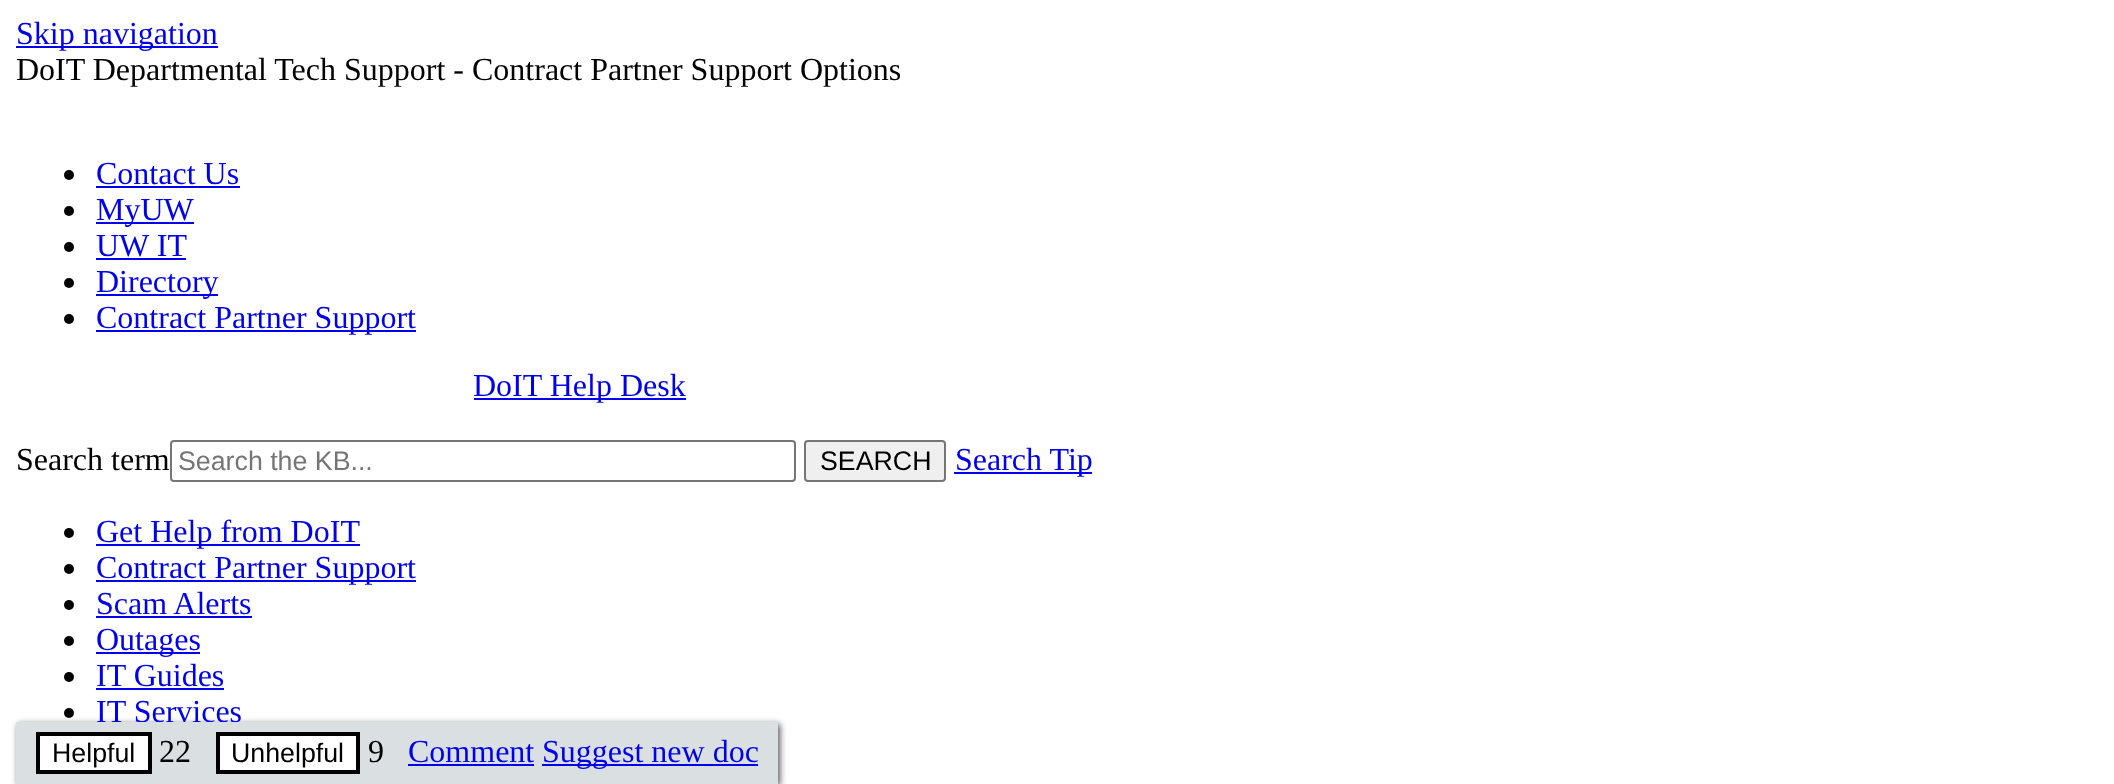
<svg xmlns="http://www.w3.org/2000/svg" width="2114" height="784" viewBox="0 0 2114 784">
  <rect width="100%" height="100%" fill="#fff"/>
  <path d="M16 46h202v2H16z" fill="#00e"/>
  <circle cx="69" cy="175" r="5" fill="#000"/>
  <path d="M96 186h144v2H96z" fill="#00e"/>
  <circle cx="69" cy="211" r="5" fill="#000"/>
  <path d="M96 222h98v2H96z" fill="#00e"/>
  <circle cx="69" cy="247" r="5" fill="#000"/>
  <path d="M96 258h90v2H96z" fill="#00e"/>
  <circle cx="69" cy="283" r="5" fill="#000"/>
  <path d="M96 294h122v2H96z" fill="#00e"/>
  <circle cx="69" cy="319" r="5" fill="#000"/>
  <path d="M96 330h320v2H96z" fill="#00e"/>
  <path d="M474 398h212v2H474z" fill="#00e"/>
  <rect x="171" y="441" width="624" height="40" rx="3" fill="none" stroke="#767676" stroke-width="2"/>
  <rect x="805" y="441" width="140" height="40" rx="3" fill="#efefef" stroke="#767676" stroke-width="2"/>
  <path d="M954 472h138v2H954z" fill="#00e"/>
  <circle cx="69" cy="533" r="5" fill="#000"/>
  <path d="M96 544h264v2H96z" fill="#00e"/>
  <circle cx="69" cy="569" r="5" fill="#000"/>
  <path d="M96 580h320v2H96z" fill="#00e"/>
  <circle cx="69" cy="605" r="5" fill="#000"/>
  <path d="M96 616h156v2H96z" fill="#00e"/>
  <circle cx="69" cy="641" r="5" fill="#000"/>
  <path d="M96 652h104v2H96z" fill="#00e"/>
  <circle cx="69" cy="677" r="5" fill="#000"/>
  <path d="M96 688h128v2H96z" fill="#00e"/>
  <circle cx="69" cy="713" r="5" fill="#000"/>
  <path d="M18 724h762v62H18z" fill="#555" filter="blur(3px)"/>
  <text x="16" y="44" font-family="Liberation Serif" font-size="32" fill="#00e">Skip navigation</text>
  <text x="16" y="80" font-family="Liberation Serif" font-size="32" fill="#000">DoIT Departmental Tech Support - Contract Partner Support Options</text>
  <g font-family="Liberation Serif" font-size="32" fill="#00e">
    <text x="96" y="184">Contact Us</text>
    <text x="96" y="220">MyUW</text>
    <text x="96" y="256">UW IT</text>
    <text x="96" y="292">Directory</text>
    <text x="96" y="328">Contract Partner Support</text>
    <text x="473" y="396">DoIT Help Desk</text>
  </g>
  <text x="16" y="470" font-family="Liberation Serif" font-size="32" fill="#000">Search term</text>
  <text x="178" y="470" font-family="Liberation Sans" font-size="26.75" fill="#757575">Search the KB...</text>
  <text x="820" y="470" font-family="Liberation Sans" font-size="26.75" fill="#000">SEARCH</text>
  <g font-family="Liberation Serif" font-size="32" fill="#00e">
    <text x="955" y="470">Search Tip</text>
    <text x="96" y="542">Get Help from DoIT</text>
    <text x="96" y="578">Contract Partner Support</text>
    <text x="96" y="614">Scam Alerts</text>
    <text x="96" y="650">Outages</text>
    <text x="96" y="686">IT Guides</text>
    <text x="96" y="722">IT Services</text>
  </g>
  <path d="M16 722h762v62H16z" fill="#dadfe1"/>
  <path d="M38 734h112v38H38z" fill="#fff" stroke="#000" stroke-width="4"/>
  <text x="52" y="762" font-family="Liberation Sans" font-size="26.75" fill="#000">Helpful</text>
  <text x="159" y="762" font-family="Liberation Serif" font-size="32" fill="#000">22</text>
  <path d="M218 734h140v38H218z" fill="#fff" stroke="#000" stroke-width="4"/>
  <text x="231" y="762" font-family="Liberation Sans" font-size="26.75" fill="#000">Unhelpful</text>
  <text x="368" y="762" font-family="Liberation Serif" font-size="32" fill="#000">9</text>
  <text x="408" y="762" font-family="Liberation Serif" font-size="32" fill="#00e">Comment</text>
  <path d="M408 764h126v2H408z" fill="#00e"/>
  <path d="M542 764h216v2H542z" fill="#00e"/>
  <text x="542" y="762" font-family="Liberation Serif" font-size="32" fill="#00e">Suggest new doc</text>
</svg>
